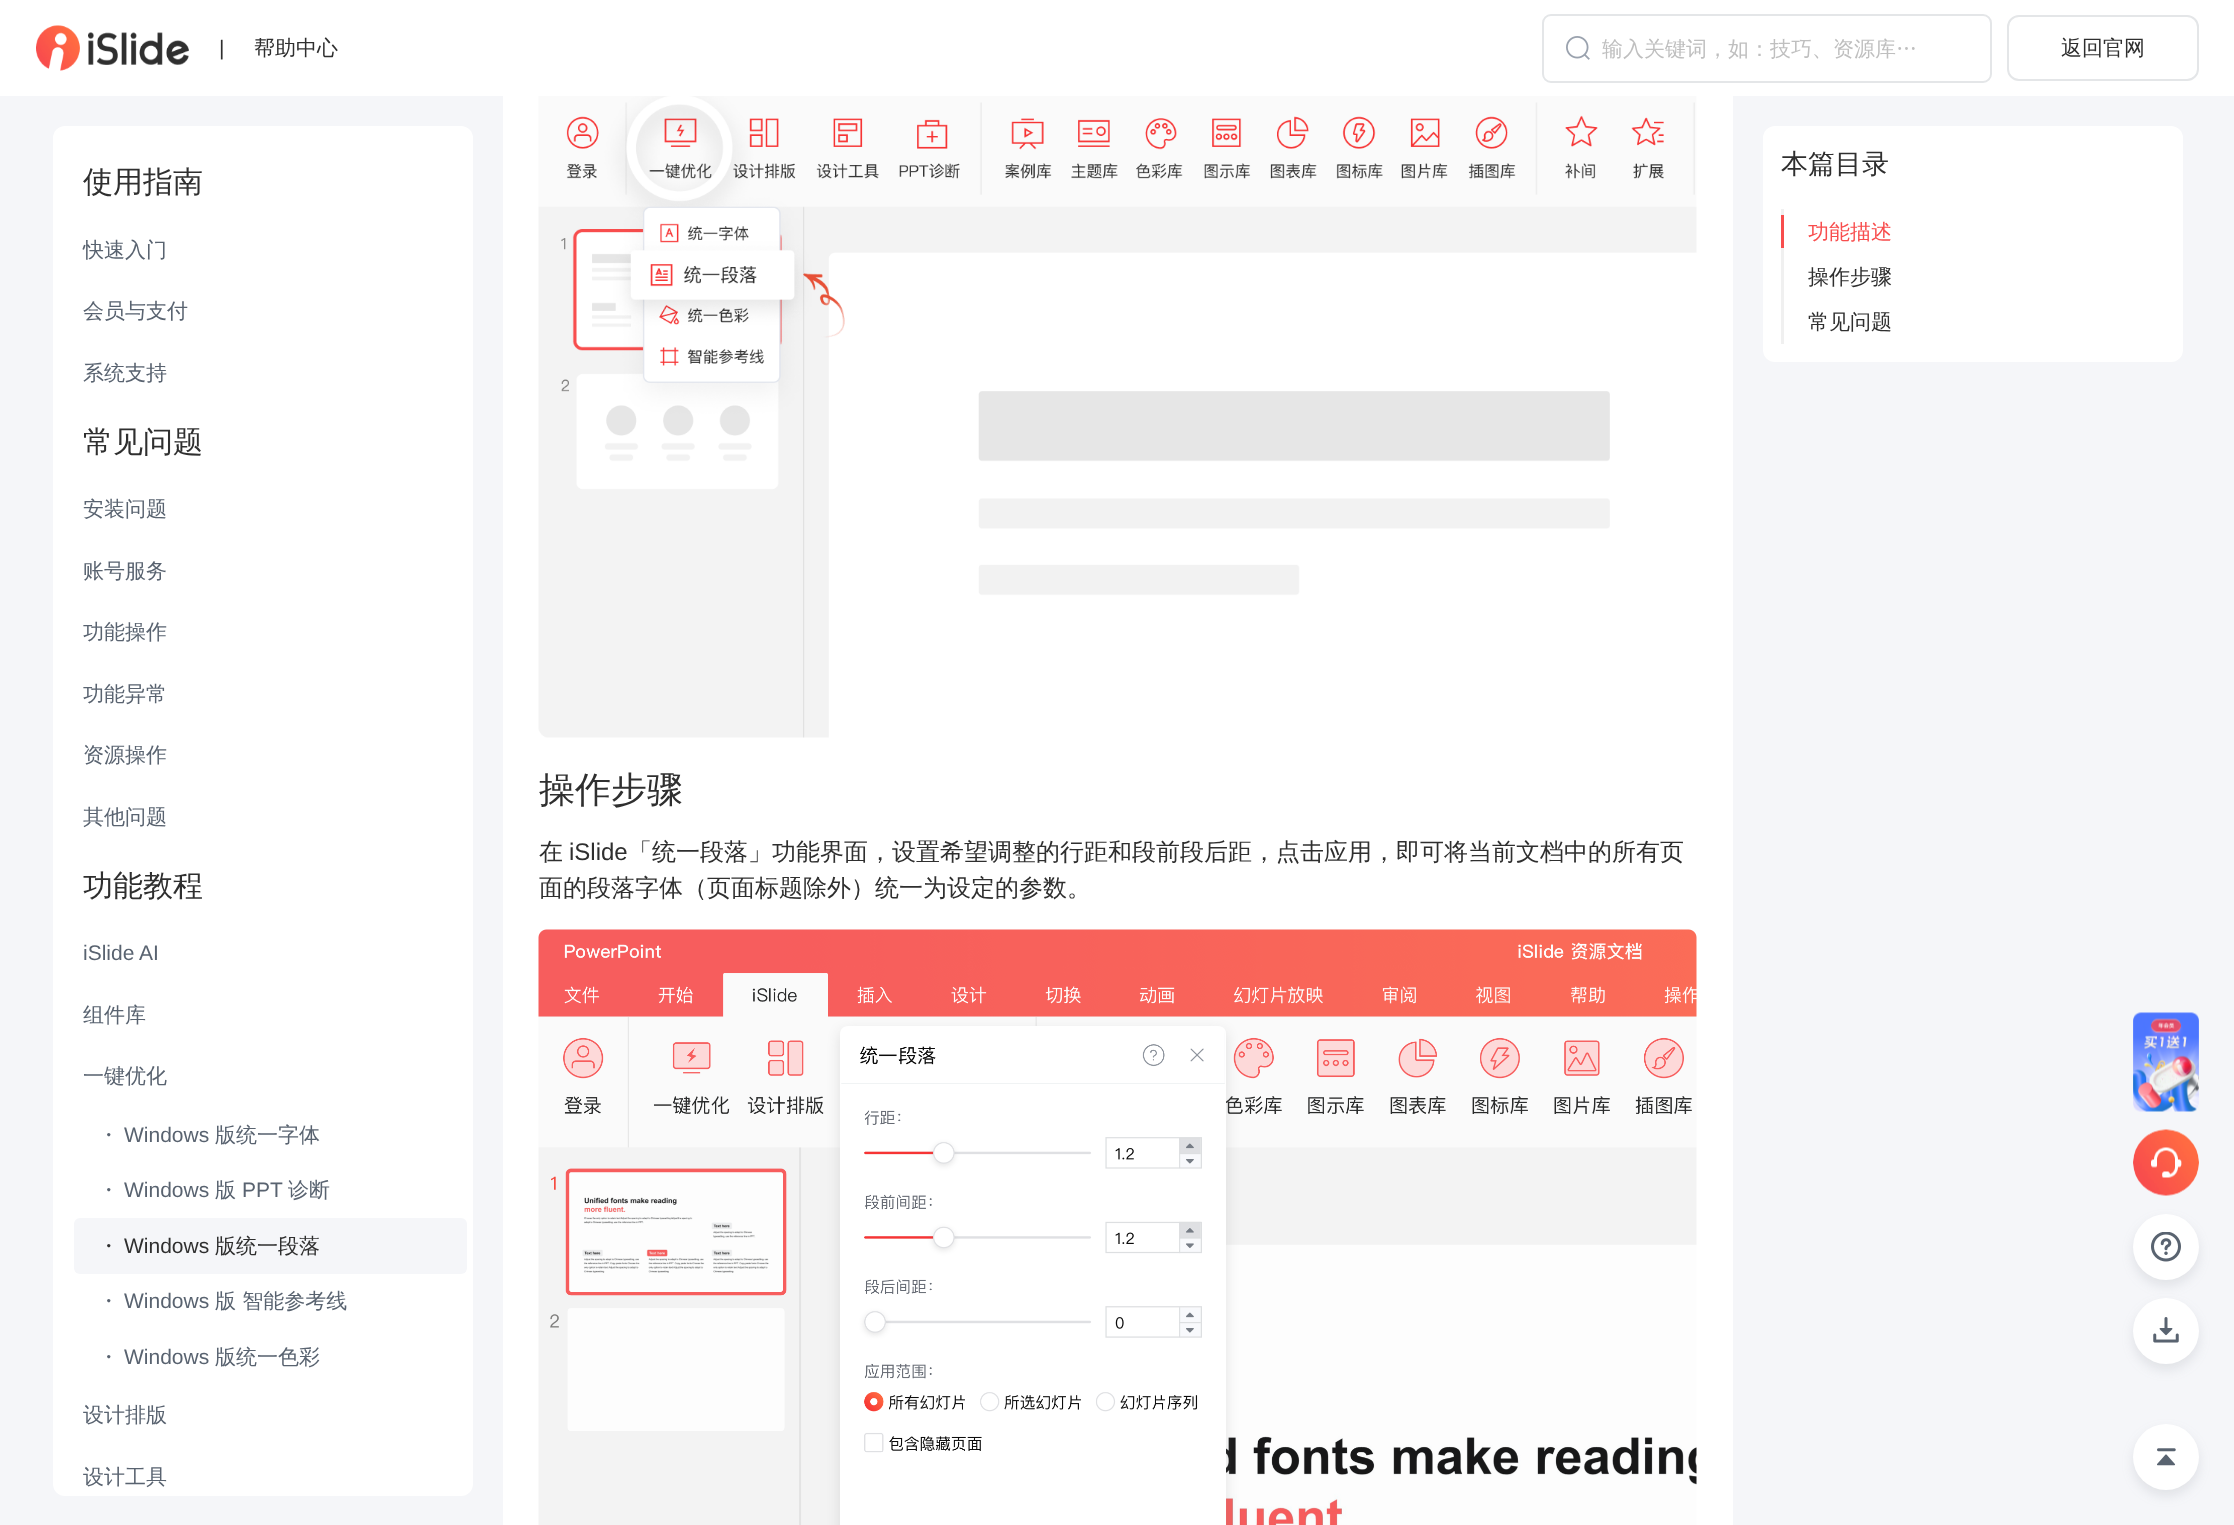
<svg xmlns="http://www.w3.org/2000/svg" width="2234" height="1525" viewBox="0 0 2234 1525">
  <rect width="100%" height="100%" fill="#f5f6f9"/>
  <path d="M0 0h2234v96H0z" fill="#fff"/>
  <image x="36" y="25" width="153" height="46" href="img/1.png"/>
  <rect x="1543" y="15" width="448" height="67" rx="8" fill="none" stroke="#e4e6e8" stroke-width="2"/>
  <image x="1566" y="36" width="24" height="24" href="img/2.png"/>
  <rect x="2008" y="16" width="190" height="64" rx="11" fill="none" stroke="#e4e6e8" stroke-width="2"/>
  <rect x="53" y="126" width="420" height="1370" rx="12" fill="#fff"/>
  <rect x="74" y="1218" width="393" height="56" rx="6" fill="#f5f6f9"/>
  <path d="M503 96h1230v1429H503z" fill="#fff"/>
  <image x="538" y="96" width="1159" height="642" href="img/3.png"/>
  <image x="538" y="929" width="1159" height="596" href="img/4.png"/>
  <rect x="1763" y="126" width="420" height="236" rx="12" fill="#fff"/>
  <path d="M1781 209h3v135H1781z" fill="#f0f0f0"/>
  <path d="M1781 215h3v33H1781z" fill="#f84d4d"/>
  <image x="2133" y="1012" width="66" height="100" href="img/5.png"/>
  <image x="2133" y="1129" width="66" height="67" href="img/6.png"/>
  <rect x="2133" y="1220" width="66" height="66" rx="33" fill="#797f8629" filter="blur(6px)"/>
  <circle cx="2166" cy="1247" r="33" fill="#fff"/>
  <image x="2151" y="1232" width="30" height="30" href="img/7.png"/>
  <rect x="2133" y="1304" width="66" height="66" rx="33" fill="#797f8629" filter="blur(6px)"/>
  <circle cx="2166" cy="1331" r="33" fill="#fff"/>
  <image x="2153" y="1317" width="26" height="26" href="img/8.png"/>
  <rect x="2133" y="1430" width="66" height="66" rx="33" fill="#797f8629" filter="blur(6px)"/>
  <circle cx="2166" cy="1457" r="33" fill="#fff"/>
  <image x="2157" y="1448" width="19" height="18" href="img/9.png"/>
  <text x="219" y="55" font-family="Liberation Sans" font-size="21" fill="#2f2f2f">|</text>
  <text x="254" y="55" font-family="WenQuanYi Zen Hei" font-size="21" font-weight="500" fill="#2f2f2f">帮助中心</text>
  <text x="1602" y="56" font-family="WenQuanYi Zen Hei" font-size="21" font-weight="500" fill="#bfbfbf">输入关键词，如：技巧、资源库…</text>
  <text x="2061" y="55" font-family="WenQuanYi Zen Hei" font-size="21" font-weight="500" fill="#2f2f2f">返回官网</text>
  <text x="83" y="192" font-family="WenQuanYi Zen Hei" font-size="30" font-weight="500" fill="#2f2f2f">使用指南</text>
  <g font-family="WenQuanYi Zen Hei" font-size="21" font-weight="500" fill="#596370">
    <text x="83" y="257">快速入门</text>
    <text x="83" y="318">会员与支付</text>
    <text x="83" y="380">系统支持</text>
  </g>
  <text x="83" y="452" font-family="WenQuanYi Zen Hei" font-size="30" font-weight="500" fill="#2f2f2f">常见问题</text>
  <g font-family="WenQuanYi Zen Hei" font-size="21" font-weight="500" fill="#596370">
    <text x="83" y="516">安装问题</text>
    <text x="83" y="578">账号服务</text>
    <text x="83" y="639">功能操作</text>
    <text x="83" y="701">功能异常</text>
    <text x="83" y="762">资源操作</text>
    <text x="83" y="824">其他问题</text>
  </g>
  <text x="83" y="896" font-family="WenQuanYi Zen Hei" font-size="30" font-weight="500" fill="#2f2f2f">功能教程</text>
  <text x="83" y="960" font-family="Liberation Sans" font-size="21" fill="#596370">iSlide AI</text>
  <g font-family="WenQuanYi Zen Hei" font-size="21" font-weight="500" fill="#596370">
    <text x="83" y="1022">组件库</text>
    <text x="83" y="1083">一键优化</text>
    <text x="98" y="1142">・</text>
  </g>
  <text x="124" y="1142" font-family="Liberation Sans" font-size="21" fill="#596370">Windows</text>
  <g font-family="WenQuanYi Zen Hei" font-size="21" font-weight="500" fill="#596370">
    <text x="215" y="1142">版统一字体</text>
    <text x="98" y="1197">・</text>
  </g>
  <text x="124" y="1197" font-family="Liberation Sans" font-size="21" fill="#596370">Windows</text>
  <text x="215" y="1197" font-family="WenQuanYi Zen Hei" font-size="21" font-weight="500" fill="#596370">版</text>
  <text x="242" y="1197" font-family="Liberation Sans" font-size="21" fill="#596370">PPT</text>
  <text x="288" y="1197" font-family="WenQuanYi Zen Hei" font-size="21" font-weight="500" fill="#596370">诊断</text>
  <text x="98" y="1253" font-family="WenQuanYi Zen Hei" font-size="21" font-weight="500" fill="#2f2f2f">・</text>
  <text x="124" y="1253" font-family="Liberation Sans" font-size="21" fill="#2f2f2f">Windows</text>
  <text x="215" y="1253" font-family="WenQuanYi Zen Hei" font-size="21" font-weight="500" fill="#2f2f2f">版统一段落</text>
  <text x="98" y="1308" font-family="WenQuanYi Zen Hei" font-size="21" font-weight="500" fill="#596370">・</text>
  <text x="124" y="1308" font-family="Liberation Sans" font-size="21" fill="#596370">Windows</text>
  <g font-family="WenQuanYi Zen Hei" font-size="21" font-weight="500" fill="#596370">
    <text x="215" y="1308">版 智能参考线</text>
    <text x="98" y="1364">・</text>
  </g>
  <text x="124" y="1364" font-family="Liberation Sans" font-size="21" fill="#596370">Windows</text>
  <g font-family="WenQuanYi Zen Hei" font-size="21" font-weight="500" fill="#596370">
    <text x="215" y="1364">版统一色彩</text>
    <text x="83" y="1422">设计排版</text>
    <text x="83" y="1484">设计工具</text>
  </g>
  <text x="539" y="802" font-family="WenQuanYi Zen Hei" font-size="36" font-weight="500" fill="#2f2f2f">操作步骤</text>
  <text x="539" y="860" font-family="WenQuanYi Zen Hei" font-size="24" font-weight="500" fill="#2f2f2f">在</text>
  <text x="569" y="860" font-family="Liberation Sans" font-size="24" fill="#2f2f2f">iSlide</text>
  <g font-family="WenQuanYi Zen Hei" font-size="24" font-weight="500" fill="#2f2f2f">
    <text x="628" y="860">「统一段落」功能界面，设置希望调整的行距和段前段后距，点击应用，即可将当前文档中的所有页</text>
    <text x="539" y="896">面的段落字体（页面标题除外）统一为设定的参数。</text>
  </g>
  <text x="1781" y="173" font-family="WenQuanYi Zen Hei" font-size="27" font-weight="500" fill="#2f2f2f">本篇目录</text>
  <text x="1808" y="239" font-family="WenQuanYi Zen Hei" font-size="21" font-weight="500" fill="#f84d4d">功能描述</text>
  <g font-family="WenQuanYi Zen Hei" font-size="21" font-weight="500" fill="#2f2f2f">
    <text x="1808" y="284">操作步骤</text>
    <text x="1808" y="329">常见问题</text>
  </g>
</svg>
